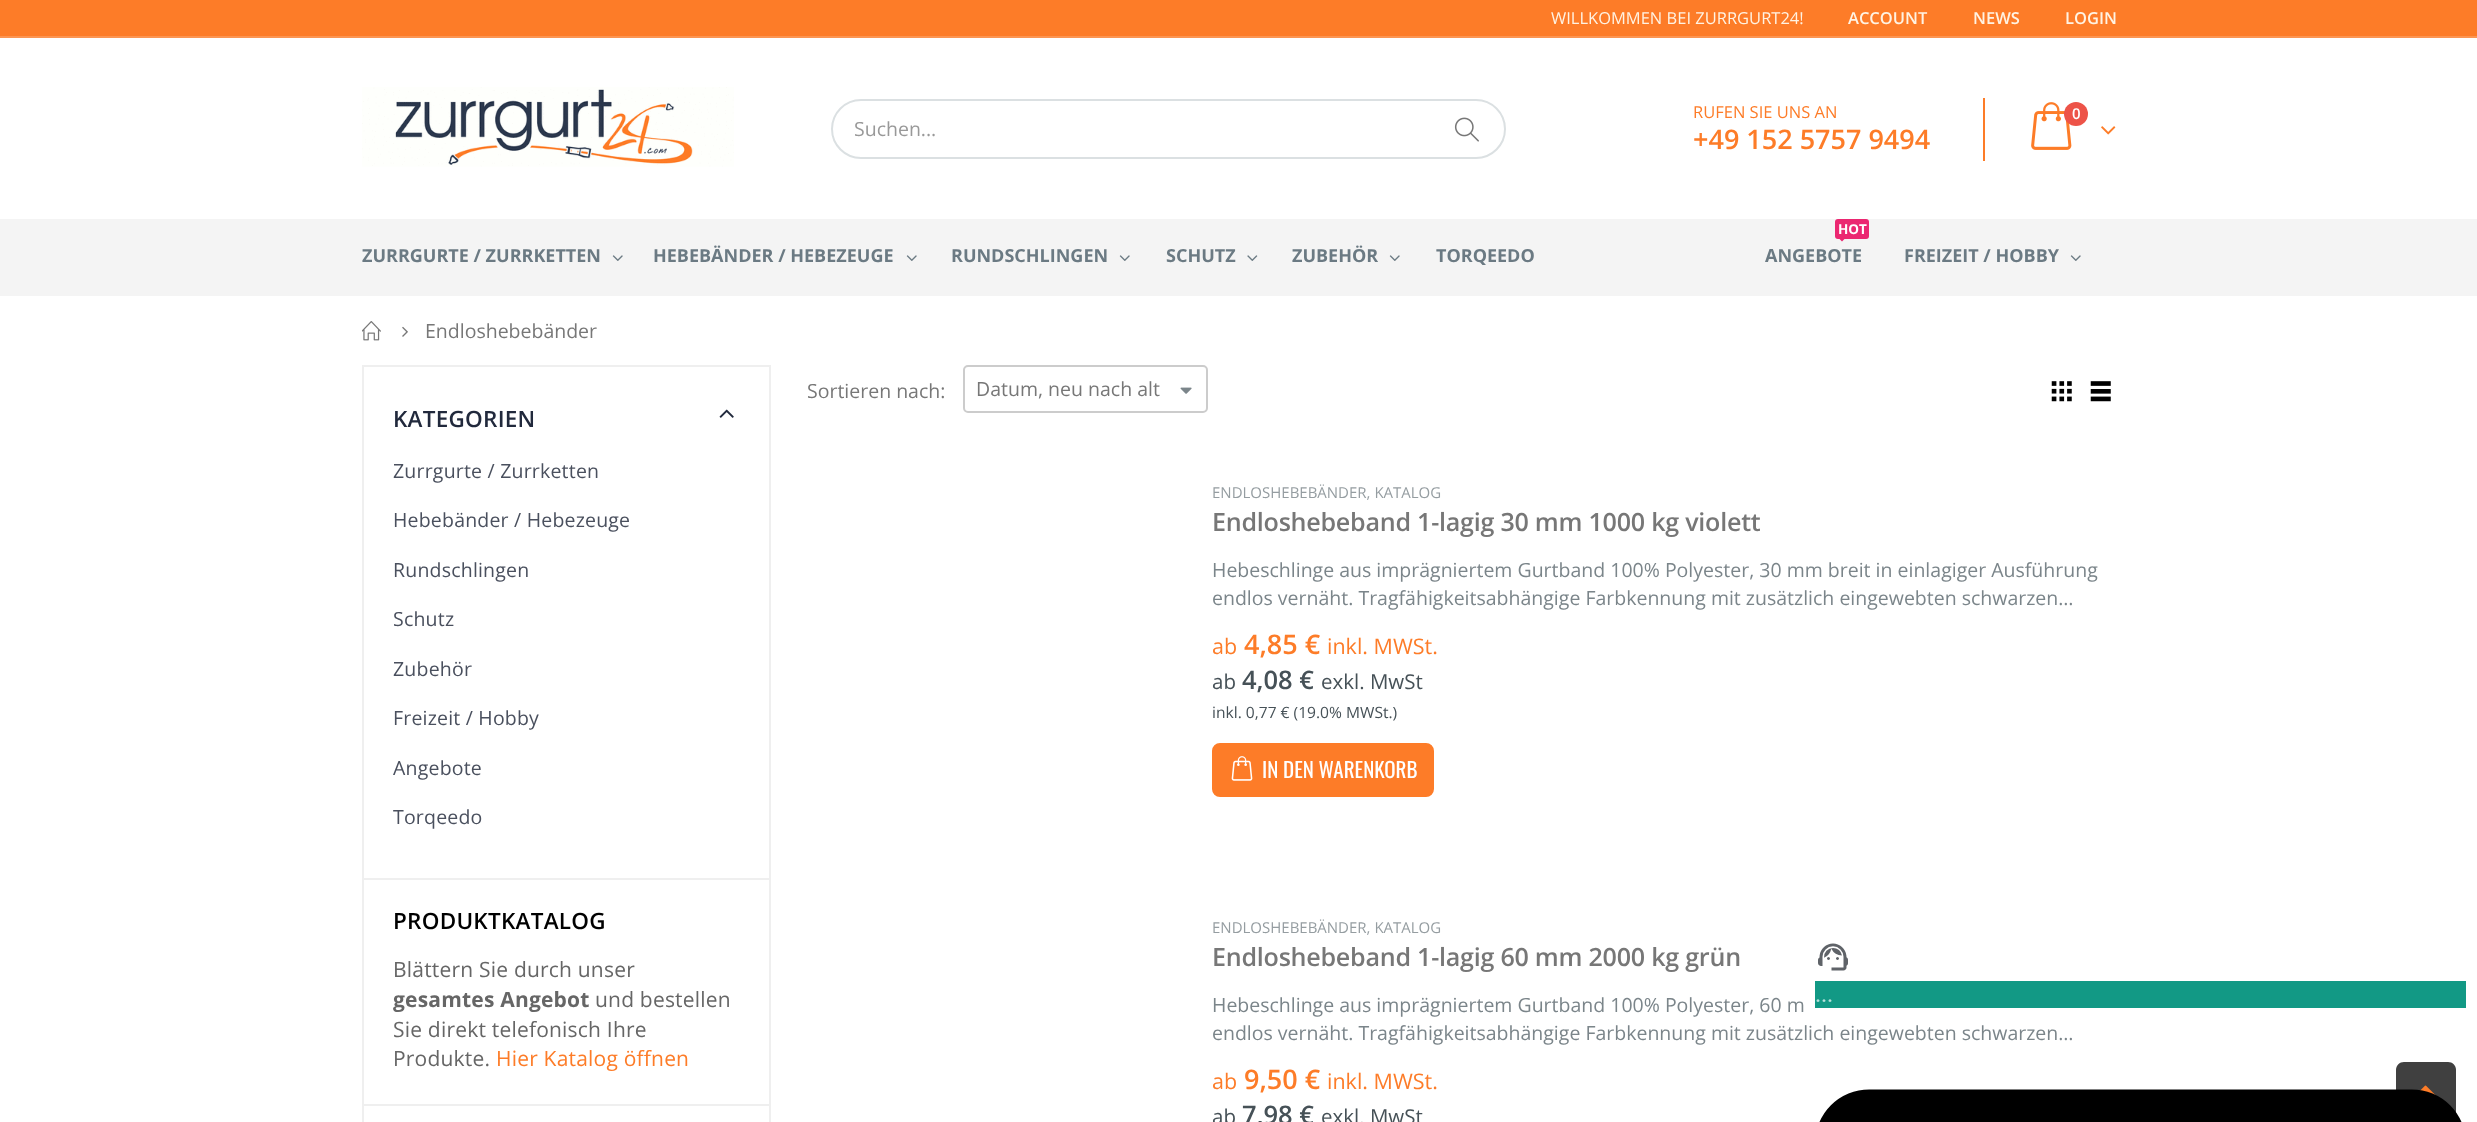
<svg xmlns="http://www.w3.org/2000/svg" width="2477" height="1122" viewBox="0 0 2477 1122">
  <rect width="100%" height="100%" fill="#fff"/>
  <path d="M0 0h2477v36H0z" fill="#fd7c28"/>
  <path d="M0 36h2477v2H0z" fill="#fc9552"/>
  <image x="362" y="87" width="372" height="80" href="img/1.png"/>
  <rect x="832" y="100" width="673" height="58" rx="29" fill="none" stroke="#dbe0e2" stroke-width="2"/>
  <image x="1454" y="117" width="25" height="25" href="img/2.png"/>
  <path d="M1983 98h2v63H1983z" fill="#fd7c28"/>
  <image x="2031" y="102" width="41" height="48" href="img/3.png"/>
  <circle cx="2076" cy="114" r="12" fill="#ed5348"/>
  <image x="2101" y="126" width="15" height="9" href="img/4.png"/>
  <path d="M0 219h2477v77H0z" fill="#f4f4f4"/>
  <image x="612" y="255" width="11" height="6" href="img/5.png"/>
  <image x="906" y="255" width="11" height="6" href="img/5.png"/>
  <image x="1119" y="255" width="11" height="6" href="img/5.png"/>
  <image x="1247" y="255" width="11" height="6" href="img/6.png"/>
  <image x="1389" y="255" width="11" height="6" href="img/5.png"/>
  <rect x="1835" y="219" width="34" height="20" rx="3" fill="#eb2771"/>
  <path d="M1839 238.5H1845L1842 241.5Z" fill="#eb2771"/>
  <image x="2070" y="255" width="11" height="6" href="img/5.png"/>
  <image x="362" y="321" width="19" height="20" href="img/7.png"/>
  <image x="402" y="326" width="6" height="11" href="img/8.png"/>
  <path d="M363 366h407v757H363z" fill="none" stroke="#efefef" stroke-width="2"/>
  <image x="719" y="409" width="15" height="9" href="img/9.png"/>
  <path d="M363 878h407v2H363z" fill="#efefef"/>
  <path d="M363 1104h407v2H363z" fill="#efefef"/>
  <rect x="964" y="366" width="243" height="46" rx="4" fill="none" stroke="#ccc" stroke-width="2"/>
  <image x="1180" y="387" width="12" height="7" href="img/10.png"/>
  <image x="2051" y="381" width="21" height="21" href="img/11.png"/>
  <image x="2090" y="381" width="21" height="21" href="img/12.png"/>
  <rect x="1213" y="744" width="220" height="52" rx="7" fill="#fd7c28" stroke="#fd7c28" stroke-width="2"/>
  <image x="1231" y="756" width="22" height="25" href="img/13.png"/>
  <path d="M2404 1062H2448C2452.5 1062 2456 1065.5 2456 1070V1122H2396V1070C2396 1065.5 2399.5 1062 2404 1062Z" fill="#404040"/>
  <image x="2419" y="1085" width="18" height="11" href="img/14.png"/>
  <text x="1551" y="24" font-family="Open Sans" font-size="16.5" fill="#fff3e3">WILLKOMMEN BEI ZURRGURT24!</text>
  <g font-family="Open Sans" font-size="16.5" font-weight="600" fill="#fff3e3">
    <text x="1848" y="24">ACCOUNT</text>
    <text x="1973" y="24">NEWS</text>
    <text x="2065" y="24">LOGIN</text>
  </g>
  <text x="854" y="136" font-family="Open Sans" font-size="19.5" fill="#999">Suchen...</text>
  <text x="1693" y="118" font-family="Open Sans" font-size="16.5" fill="#fd7c28">RUFEN SIE UNS AN</text>
  <text x="1693" y="149" font-family="Open Sans" font-size="27" font-weight="600" fill="#fd7c28">+49 152 5757 9494</text>
  <text x="2072" y="119" font-family="Open Sans" font-size="15" font-weight="600" fill="#fff">0</text>
  <g font-family="Open Sans" font-size="18" font-weight="bold" fill="#6b7a83">
    <text x="362" y="262">ZURRGURTE / ZURRKETTEN</text>
    <text x="653" y="262">HEBEBÄNDER / HEBEZEUGE</text>
    <text x="951" y="262">RUNDSCHLINGEN</text>
    <text x="1166" y="262">SCHUTZ</text>
    <text x="1292" y="262">ZUBEHÖR</text>
    <text x="1436" y="262">TORQEEDO</text>
  </g>
  <text x="1838" y="234" font-family="Open Sans" font-size="13.5" font-weight="bold" fill="#fff">HOT</text>
  <g font-family="Open Sans" font-size="18" font-weight="bold" fill="#6b7a83">
    <text x="1765" y="262">ANGEBOTE</text>
    <text x="1904" y="262">FREIZEIT / HOBBY</text>
  </g>
  <text x="425" y="338" font-family="Open Sans" font-size="19.5" fill="#777">Endloshebebänder</text>
  <text x="393" y="427" font-family="Open Sans" font-size="22.5" font-weight="600" letter-spacing="0.25" fill="#21293c">KATEGORIEN</text>
  <g font-family="Open Sans" font-size="19.5" letter-spacing="0.2" fill="#4a505e">
    <text x="393" y="478">Zurrgurte / Zurrketten</text>
    <text x="393" y="527">Hebebänder / Hebezeuge</text>
    <text x="393" y="577">Rundschlingen</text>
    <text x="393" y="626">Schutz</text>
    <text x="393" y="676">Zubehör</text>
    <text x="393" y="725">Freizeit / Hobby</text>
    <text x="393" y="775">Angebote</text>
    <text x="393" y="824">Torqeedo</text>
  </g>
  <text x="393" y="929" font-family="Open Sans" font-size="22.5" font-weight="600" letter-spacing="0.25" fill="#000">PRODUKTKATALOG</text>
  <text x="393" y="977" font-family="Open Sans" font-size="21" letter-spacing="0.2" fill="#666">Blättern Sie durch unser</text>
  <text x="393" y="1007" font-family="Open Sans" font-size="21" font-weight="bold" letter-spacing="0.2" fill="#666">gesamtes Angebot</text>
  <g font-family="Open Sans" font-size="21" letter-spacing="0.2" fill="#666">
    <text x="595" y="1007">und bestellen</text>
    <text x="393" y="1037">Sie direkt telefonisch Ihre</text>
    <text x="393" y="1066">Produkte.</text>
  </g>
  <text x="496" y="1066" font-family="Open Sans" font-size="21" letter-spacing="0.2" fill="#fd7c28">Hier Katalog öffnen</text>
  <g font-family="Open Sans" font-size="19.5" fill="#777">
    <text x="807" y="398">Sortieren nach:</text>
    <text x="976" y="396">Datum, neu nach alt</text>
  </g>
  <text x="1212" y="498" font-family="Open Sans" font-size="15" fill="#959da1">ENDLOSHEBEBÄNDER, KATALOG</text>
  <text x="1212" y="531" font-family="Open Sans" font-size="25.1" font-weight="600" letter-spacing="-0.25" fill="#777">Endloshebeband 1-lagig 30 mm 1000 kg violett</text>
  <g font-family="Open Sans" font-size="19.5" fill="#7b858a">
    <text x="1212" y="577">Hebeschlinge aus imprägniertem Gurtband 100% Polyester, 30 mm breit in einlagiger Ausführung</text>
    <text x="1212" y="605">endlos vernäht. Tragfähigkeitsabhängige Farbkennung mit zusätzlich eingewebten schwarzen…</text>
  </g>
  <text x="1212" y="654" font-family="Open Sans" font-size="21.5" fill="#fd7c28">ab</text>
  <text x="1244" y="654" font-family="Open Sans" font-size="27" font-weight="600" fill="#fd7c28">4,85 €</text>
  <text x="1327" y="654" font-family="Open Sans" font-size="21.5" fill="#fd7c28">inkl. MWSt.</text>
  <text x="1212" y="689" font-family="Open Sans" font-size="20.5" fill="#465157">ab</text>
  <text x="1242" y="689" font-family="Open Sans" font-size="25.5" font-weight="600" fill="#465157">4,08 €</text>
  <text x="1321" y="689" font-family="Open Sans" font-size="20.5" fill="#465157">exkl. MwSt</text>
  <text x="1212" y="718" font-family="Open Sans" font-size="15.6" fill="#465157">inkl. 0,77 € (19.0% MWSt.)</text>
  <text x="1262" y="778" font-family="Oswald" font-size="21" fill="#fff">IN DEN WARENKORB</text>
  <text x="1212" y="933" font-family="Open Sans" font-size="15" fill="#959da1">ENDLOSHEBEBÄNDER, KATALOG</text>
  <text x="1212" y="966" font-family="Open Sans" font-size="25.1" font-weight="600" letter-spacing="-0.25" fill="#777">Endloshebeband 1-lagig 60 mm 2000 kg grün</text>
  <g font-family="Open Sans" font-size="19.5" fill="#7b858a">
    <text x="1212" y="1012">Hebeschlinge aus imprägniertem Gurtband 100% Polyester, 60 m</text>
    <text x="1212" y="1040">endlos vernäht. Tragfähigkeitsabhängige Farbkennung mit zusätzlich eingewebten schwarzen…</text>
  </g>
  <text x="1212" y="1089" font-family="Open Sans" font-size="21.5" fill="#fd7c28">ab</text>
  <text x="1244" y="1089" font-family="Open Sans" font-size="27" font-weight="600" fill="#fd7c28">9,50 €</text>
  <text x="1327" y="1089" font-family="Open Sans" font-size="21.5" fill="#fd7c28">inkl. MWSt.</text>
  <text x="1212" y="1124" font-family="Open Sans" font-size="20.5" fill="#465157">ab</text>
  <text x="1242" y="1124" font-family="Open Sans" font-size="25.5" font-weight="600" fill="#465157">7,98 €</text>
  <text x="1321" y="1124" font-family="Open Sans" font-size="20.5" fill="#465157">exkl. MwSt</text>
  <image x="1815" y="943" width="651" height="179" href="img/15.png"/>
</svg>
